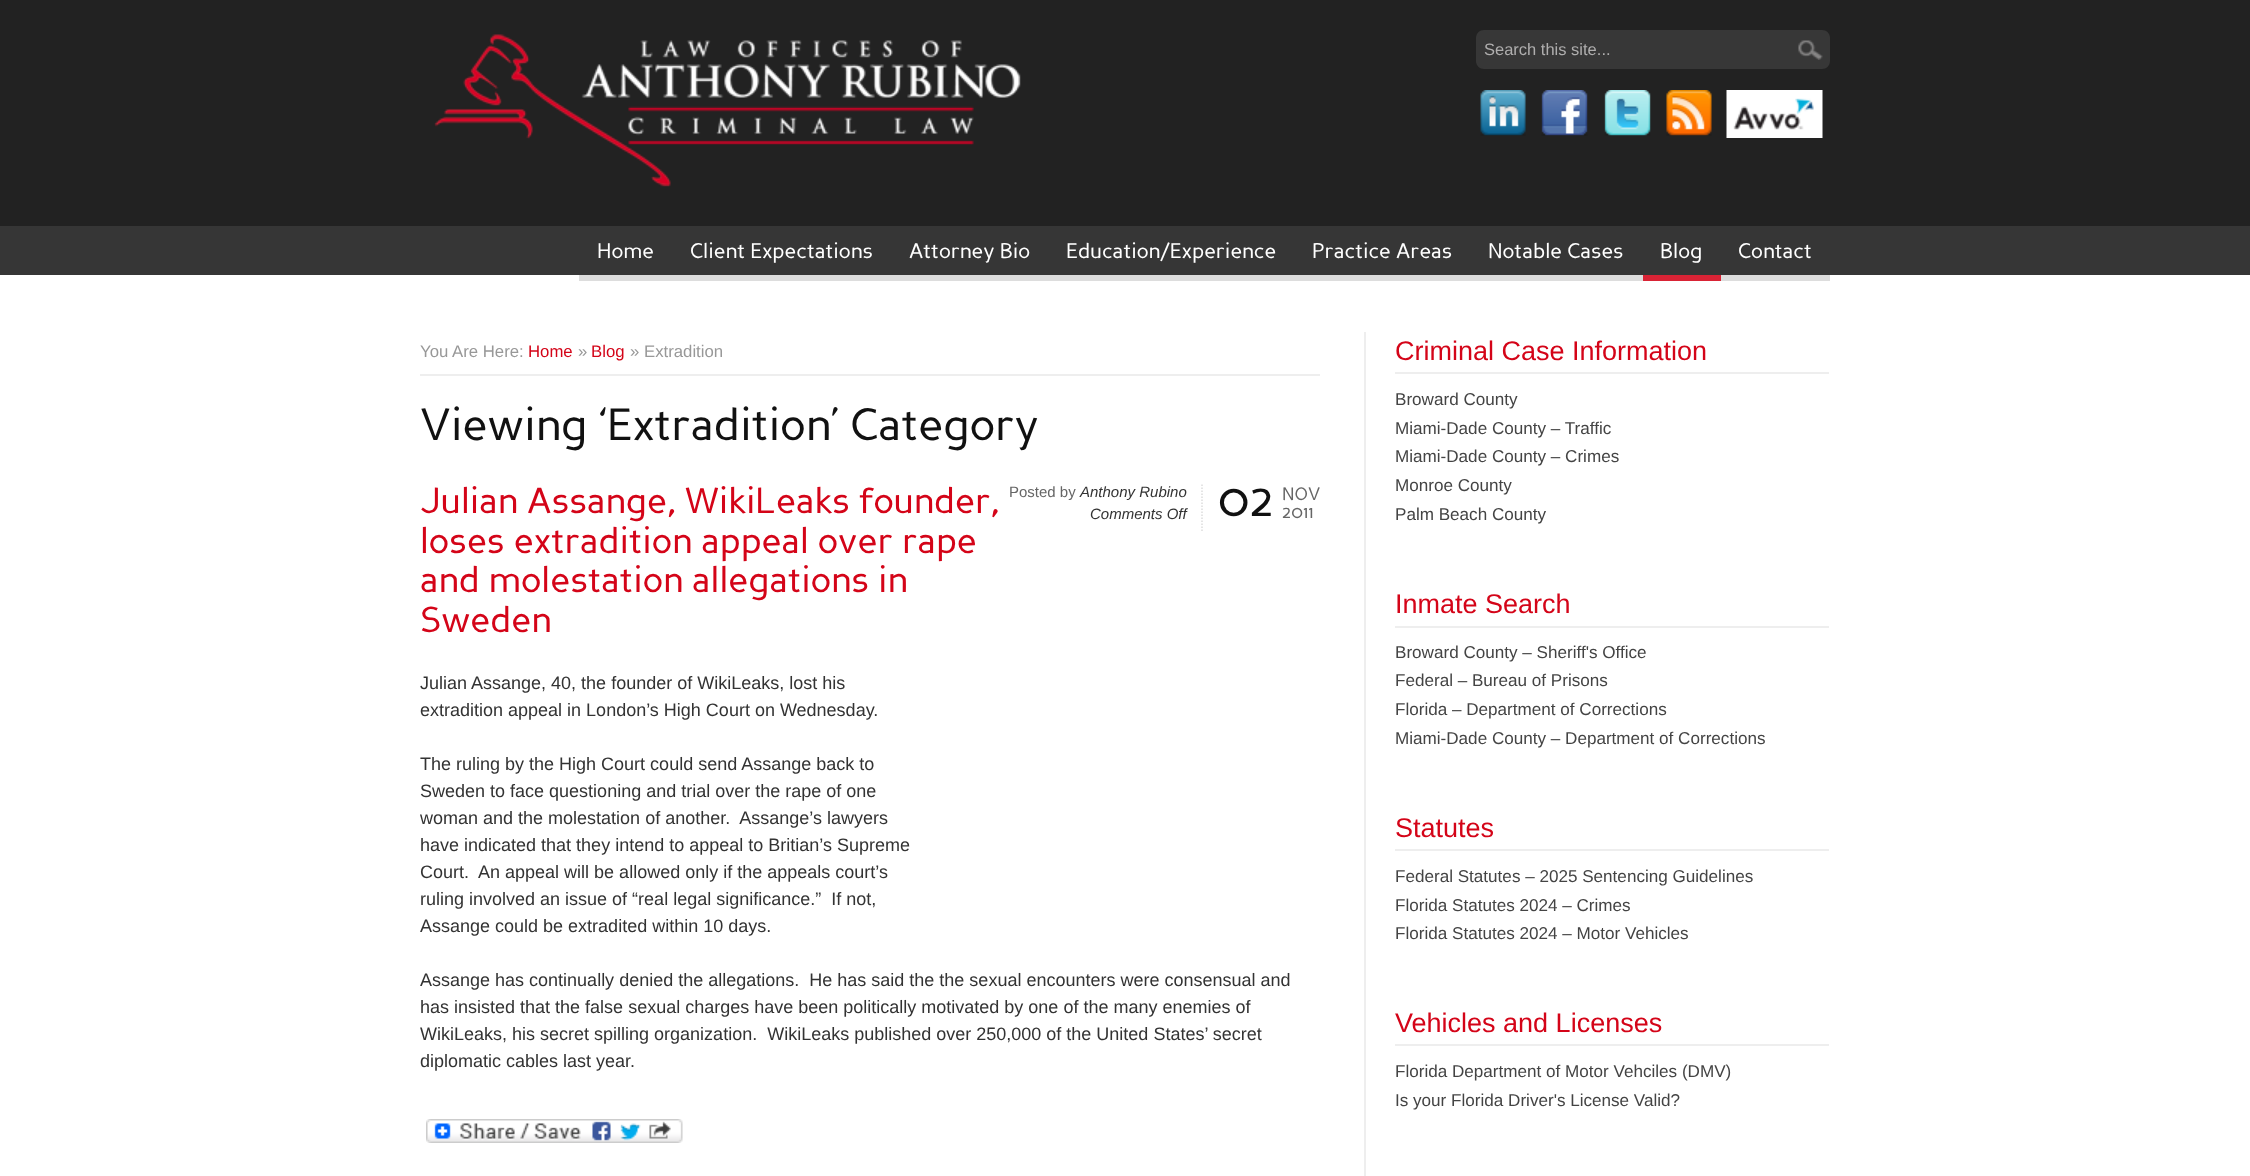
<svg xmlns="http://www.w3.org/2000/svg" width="2250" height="1176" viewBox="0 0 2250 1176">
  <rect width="100%" height="100%" fill="#fff"/>
  <path d="M0 0h2250v226H0z" fill="#222"/>
  <image x="434" y="34" width="587" height="153" href="img/1.png"/>
  <path d="M1484 30H1791V69H1484C1479.5 69 1476 65.5 1476 61V38C1476 33.5 1479.5 30 1484 30Z" fill="#373737"/>
  <path d="M1791 30H1822C1826.5 30 1830 33.5 1830 38V61C1830 65.5 1826.5 69 1822 69H1791Z" fill="#373737"/>
  <image x="1798" y="40" width="25" height="20" href="img/2.png"/>
  <image x="1480" y="90" width="46" height="46" href="img/3.png"/>
  <image x="1541" y="90" width="47" height="46" href="img/4.png"/>
  <image x="1604" y="90" width="47" height="46" href="img/5.png"/>
  <image x="1666" y="90" width="46" height="46" href="img/6.png"/>
  <image x="1726" y="90" width="97" height="48" href="img/7.png"/>
  <path d="M0 226h2250v49H0z" fill="#363636"/>
  <path d="M579 275h1064v6H579z" fill="#ddd"/>
  <path d="M1643 275h78v6H1643z" fill="#d92335"/>
  <path d="M1721 275h109v6H1721z" fill="#ddd"/>
  <path d="M1364 332h2v844H1364z" fill="#eee"/>
  <path d="M420 374h900v2H420z" fill="#eee"/>
  <path d="M1202 484.5V532.5" fill="none" stroke="#ddd" stroke-width="1.5" stroke-dasharray="1.5 1.5"/>
  <image x="426" y="1119" width="257" height="24" href="img/8.png"/>
  <path d="M1395 372h434v2H1395z" fill="#eee"/>
  <path d="M1395 626h434v2H1395z" fill="#eee"/>
  <path d="M1395 849h434v2H1395z" fill="#eee"/>
  <path d="M1395 1044h434v2H1395z" fill="#eee"/>
  <text x="1484" y="55" font-family="Liberation Sans" font-size="16.5" fill="#afaeae">Search this site...</text>
  <g font-family="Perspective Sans" font-size="21" fill="#fff">
    <text x="597" y="258">Home</text>
    <text x="690" y="258">Client Expectations</text>
    <text x="909" y="258">Attorney Bio</text>
    <text x="1066" y="258">Education/Experience</text>
    <text x="1312" y="258">Practice Areas</text>
    <text x="1488" y="258">Notable Cases</text>
    <text x="1660" y="258">Blog</text>
    <text x="1738" y="258">Contact</text>
  </g>
  <text x="420" y="357" font-family="Liberation Sans" font-size="16.75" fill="#989898">You Are Here:</text>
  <text x="528" y="357" font-family="Liberation Sans" font-size="16.75" fill="#d40418">Home</text>
  <text x="578" y="357" font-family="Liberation Sans" font-size="16.75" fill="#989898">»</text>
  <text x="591" y="357" font-family="Liberation Sans" font-size="16.75" fill="#d40418">Blog</text>
  <text x="630" y="357" font-family="Liberation Sans" font-size="16.75" fill="#989898">» Extradition</text>
  <text x="420" y="440" font-family="Perspective Sans" font-size="45" fill="#111">Viewing ‘Extradition’ Category</text>
  <g font-family="Perspective Sans" font-size="36" fill="#d40418">
    <text x="420" y="513">Julian Assange, WikiLeaks founder,</text>
    <text x="420" y="553">loses extradition appeal over rape</text>
    <text x="420" y="592">and molestation allegations in</text>
    <text x="420" y="632">Sweden</text>
  </g>
  <text x="1009" y="497" font-family="Liberation Sans" font-size="15" fill="#666">Posted by</text>
  <g font-family="Liberation Sans" font-size="15" font-style="italic" fill="#333">
    <text x="1080" y="497">Anthony Rubino</text>
    <text x="1090" y="519">Comments Off</text>
  </g>
  <text x="1218" y="516" font-family="Perspective Sans" font-size="48" fill="#111">02</text>
  <g font-family="Perspective Sans" font-size="18" fill="#666">
    <text x="1282" y="500">NOV</text>
    <text x="1282" y="518">2011</text>
  </g>
  <g font-family="Liberation Sans" font-size="18" fill="#333">
    <text x="420" y="689">Julian Assange, 40, the founder of WikiLeaks, lost his</text>
    <text x="420" y="716">extradition appeal in London’s High Court on Wednesday.</text>
    <text x="420" y="770">The ruling by the High Court could send Assange back to</text>
    <text x="420" y="797">Sweden to face questioning and trial over the rape of one</text>
    <text x="420" y="824" xml:space="preserve">woman and the molestation of another.  Assange’s lawyers</text>
    <text x="420" y="851">have indicated that they intend to appeal to Britian’s Supreme</text>
    <text x="420" y="878" xml:space="preserve">Court.  An appeal will be allowed only if the appeals court’s</text>
    <text x="420" y="905" xml:space="preserve">ruling involved an issue of “real legal significance.”  If not,</text>
    <text x="420" y="932">Assange could be extradited within 10 days.</text>
    <text x="420" y="986" xml:space="preserve">Assange has continually denied the allegations.  He has said the the sexual encounters were consensual and</text>
    <text x="420" y="1013">has insisted that the false sexual charges have been politically motivated by one of the many enemies of</text>
    <text x="420" y="1040" xml:space="preserve">WikiLeaks, his secret spilling organization.  WikiLeaks published over 250,000 of the United States’ secret</text>
    <text x="420" y="1067">diplomatic cables last year.</text>
  </g>
  <text x="1395" y="360" font-family="Liberation Sans" font-size="27" fill="#d40418">Criminal Case Information</text>
  <g font-family="Liberation Sans" font-size="17.1" fill="#444">
    <text x="1395" y="405">Broward County</text>
    <text x="1395" y="434">Miami-Dade County – Traffic</text>
    <text x="1395" y="462">Miami-Dade County – Crimes</text>
    <text x="1395" y="491">Monroe County</text>
    <text x="1395" y="520">Palm Beach County</text>
  </g>
  <text x="1395" y="613" font-family="Liberation Sans" font-size="27" fill="#d40418">Inmate Search</text>
  <g font-family="Liberation Sans" font-size="17.1" fill="#444">
    <text x="1395" y="658">Broward County – Sheriff's Office</text>
    <text x="1395" y="686">Federal – Bureau of Prisons</text>
    <text x="1395" y="715">Florida – Department of Corrections</text>
    <text x="1395" y="744">Miami-Dade County – Department of Corrections</text>
  </g>
  <text x="1395" y="837" font-family="Liberation Sans" font-size="27" fill="#d40418">Statutes</text>
  <g font-family="Liberation Sans" font-size="17.1" fill="#444">
    <text x="1395" y="882">Federal Statutes – 2025 Sentencing Guidelines</text>
    <text x="1395" y="911">Florida Statutes 2024 – Crimes</text>
    <text x="1395" y="939">Florida Statutes 2024 – Motor Vehicles</text>
  </g>
  <text x="1395" y="1032" font-family="Liberation Sans" font-size="27" fill="#d40418">Vehicles and Licenses</text>
  <g font-family="Liberation Sans" font-size="17.1" fill="#444">
    <text x="1395" y="1077">Florida Department of Motor Vehciles (DMV)</text>
    <text x="1395" y="1106">Is your Florida Driver's License Valid?</text>
  </g>
</svg>
